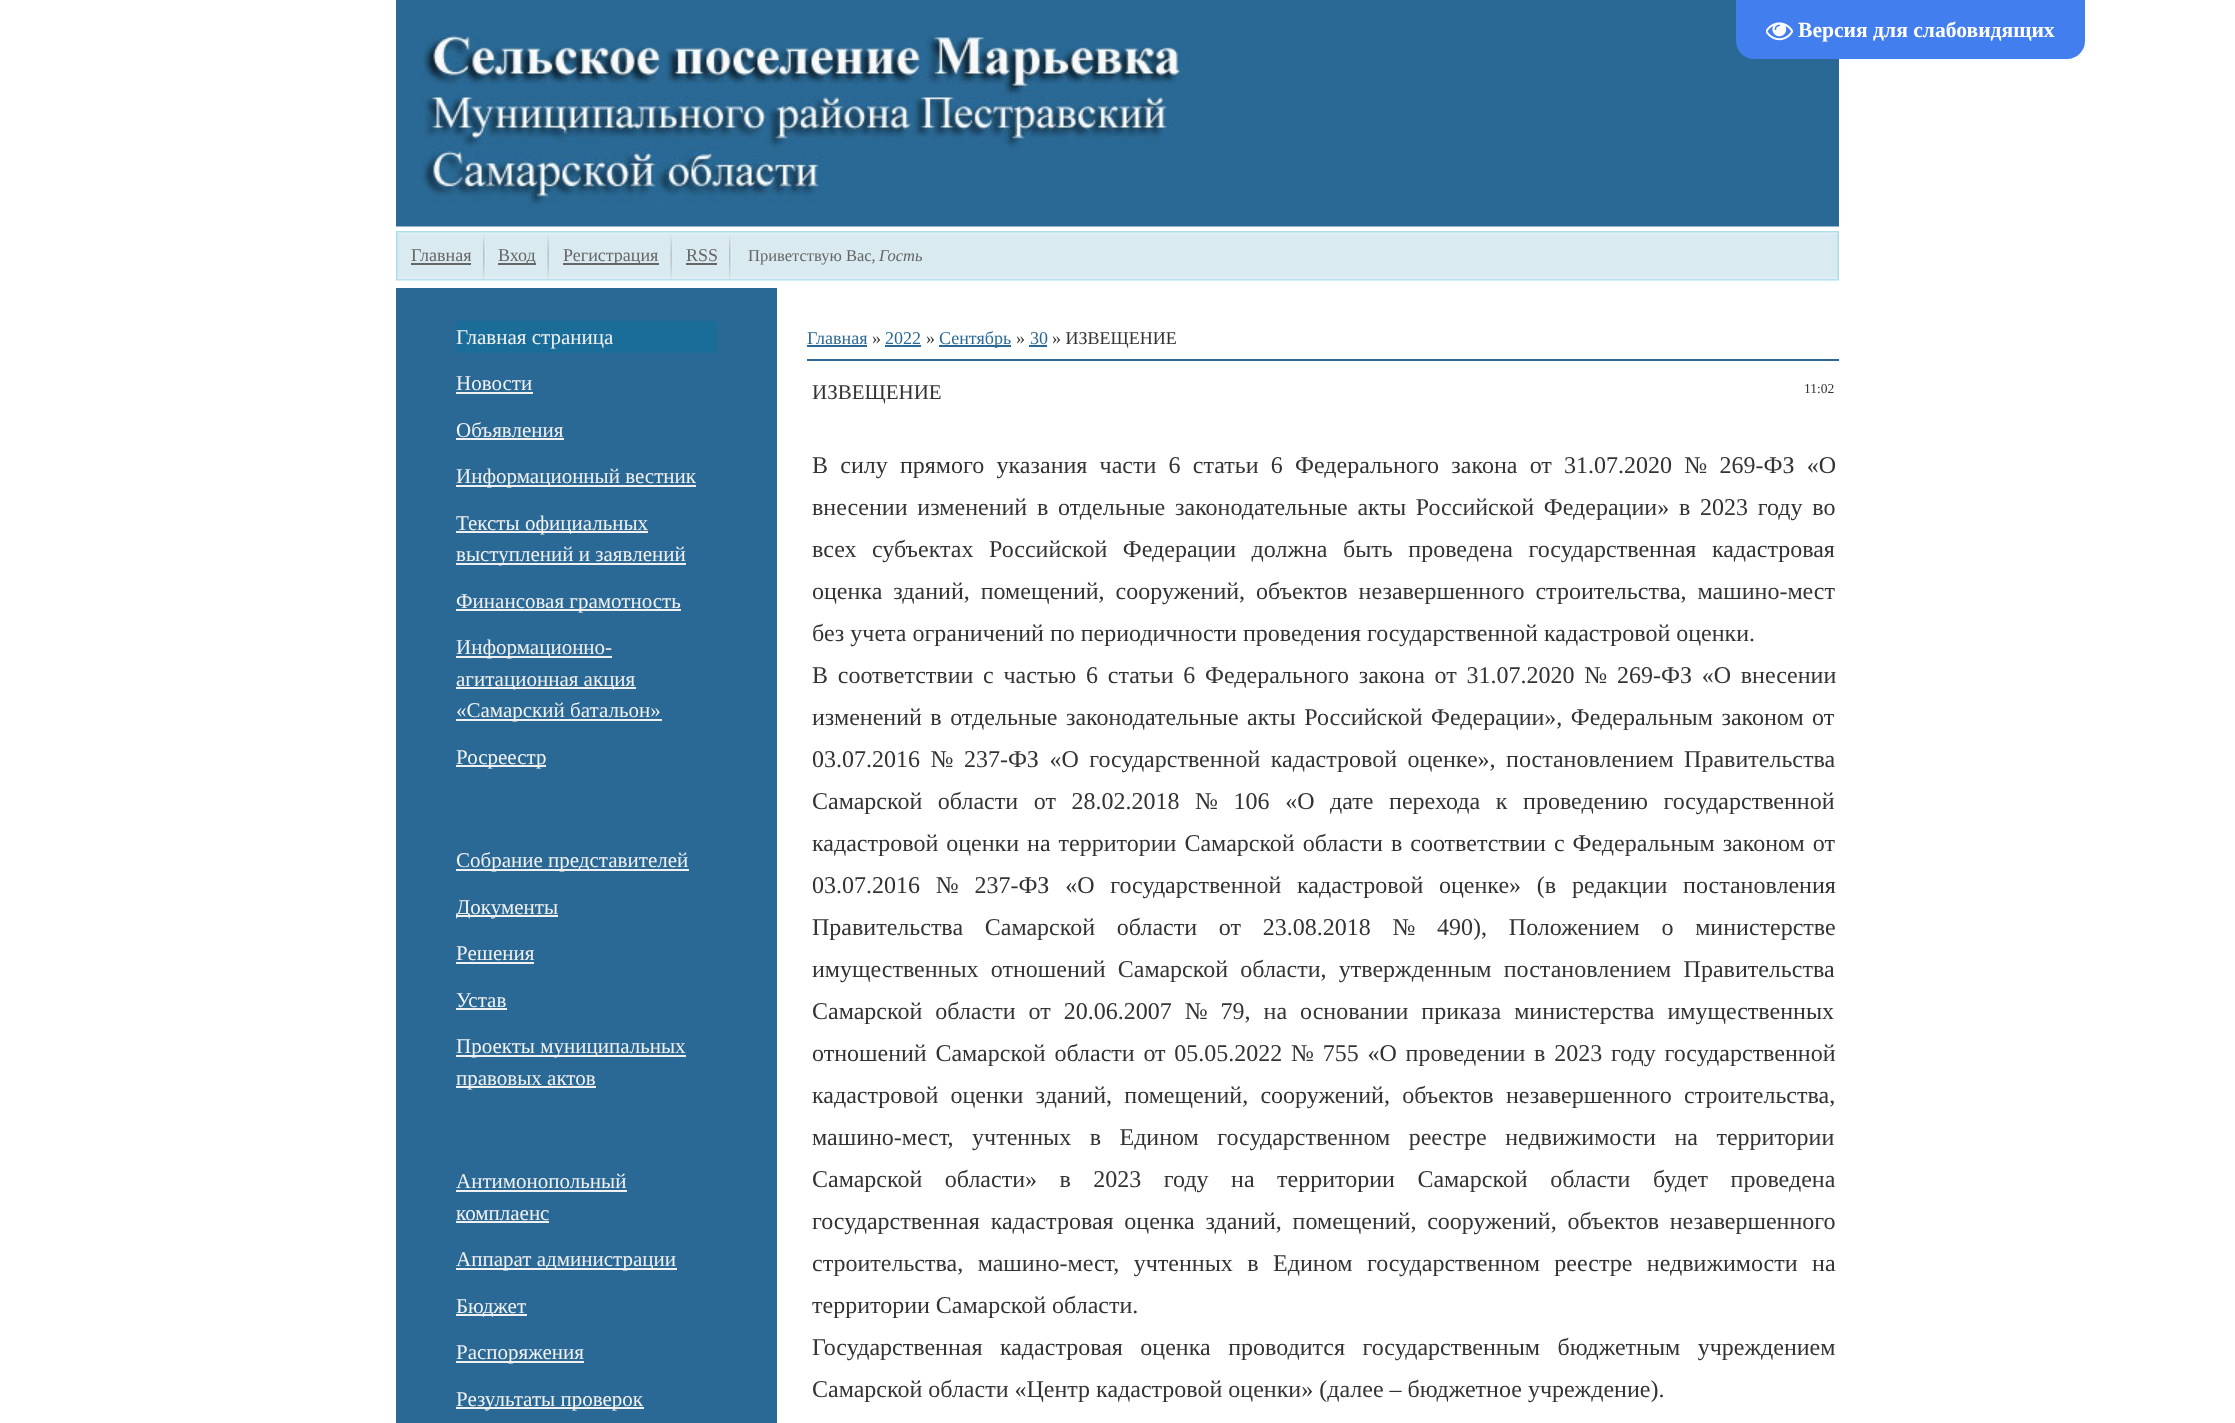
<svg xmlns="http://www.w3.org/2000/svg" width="2235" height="1423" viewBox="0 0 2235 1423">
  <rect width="100%" height="100%" fill="#fff"/>
  <image x="396" y="0" width="1443" height="227" href="img/2.png"/>
  <path d="M1736 0H2085V41C2085 51 2077 59 2067 59H1754C1744 59 1736 51 1736 41Z" fill="#427eed"/>
  <image x="1766" y="22" width="27" height="19" href="img/1.png"/>
  <image x="396" y="231" width="1443" height="50" href="img/3.png"/>
  <image x="483" y="235" width="3" height="45" href="img/4.png"/>
  <path d="M411 263h60v2H411z" fill="#666"/>
  <image x="547" y="235" width="4" height="45" href="img/5.png"/>
  <path d="M498 263h38v2H498z" fill="#666"/>
  <image x="670" y="235" width="4" height="45" href="img/5.png"/>
  <path d="M563 263h96v2H563z" fill="#666"/>
  <image x="729" y="235" width="3" height="45" href="img/4.png"/>
  <path d="M686 263h31v2H686z" fill="#666"/>
  <path d="M396 288h381v1135H396z" fill="#2a6995"/>
  <path d="M456 321h261v32H456z" fill="#1a6d99"/>
  <path d="M456 392h77v2H456z" fill="#f1f1f1"/>
  <path d="M456 438h108v2H456z" fill="#f1f1f1"/>
  <path d="M456 485h240v2H456z" fill="#f1f1f1"/>
  <path d="M456 531h192v2H456z" fill="#f1f1f1"/>
  <path d="M456 563h230v2H456z" fill="#f1f1f1"/>
  <path d="M456 609h225v2H456z" fill="#f1f1f1"/>
  <path d="M456 656h156v2H456z" fill="#f1f1f1"/>
  <path d="M456 687h180v2H456z" fill="#f1f1f1"/>
  <path d="M456 719h206v2H456z" fill="#f1f1f1"/>
  <path d="M456 765h90v2H456z" fill="#f1f1f1"/>
  <path d="M456 869h233v2H456z" fill="#f1f1f1"/>
  <path d="M456 915h102v2H456z" fill="#f1f1f1"/>
  <path d="M456 962h78v2H456z" fill="#f1f1f1"/>
  <path d="M456 1008h51v2H456z" fill="#f1f1f1"/>
  <path d="M456 1055h230v2H456z" fill="#f1f1f1"/>
  <path d="M456 1086h140v2H456z" fill="#f1f1f1"/>
  <path d="M456 1190h171v2H456z" fill="#f1f1f1"/>
  <path d="M456 1221h93v2H456z" fill="#f1f1f1"/>
  <path d="M456 1268h221v2H456z" fill="#f1f1f1"/>
  <path d="M456 1314h71v2H456z" fill="#f1f1f1"/>
  <path d="M456 1361h128v2H456z" fill="#f1f1f1"/>
  <path d="M456 1407h188v2H456z" fill="#f1f1f1"/>
  <path d="M807 345h60v2H807z" fill="#2a6995"/>
  <path d="M885 345h36v2H885z" fill="#2a6995"/>
  <path d="M939 345h72v2H939z" fill="#2a6995"/>
  <path d="M1029 345h18v2H1029z" fill="#2a6995"/>
  <path d="M807 359h1032v2H807z" fill="#2a6995"/>
  <text x="1798" y="37" font-family="Liberation Serif" font-size="21.6" font-weight="bold" fill="#fff">Версия для слабовидящих</text>
  <g font-family="Liberation Serif" font-size="18" fill="#666">
    <text x="411" y="261">Главная</text>
    <text x="498" y="261">Вход</text>
    <text x="563" y="261">Регистрация</text>
    <text x="686" y="261">RSS</text>
  </g>
  <text x="748" y="261" font-family="Liberation Serif" font-size="16.5" fill="#666">Приветствую Вас,</text>
  <text x="879" y="261" font-family="Liberation Serif" font-size="16.5" font-style="italic" fill="#666">Гость</text>
  <g font-family="Liberation Serif" font-size="21" fill="#f1f1f1">
    <text x="456" y="344">Главная страница</text>
    <text x="456" y="390">Новости</text>
    <text x="456" y="437">Объявления</text>
    <text x="456" y="483">Информационный вестник</text>
    <text x="456" y="530">Тексты официальных</text>
    <text x="456" y="561">выступлений и заявлений</text>
    <text x="456" y="608">Финансовая грамотность</text>
    <text x="456" y="654">Информационно-</text>
    <text x="456" y="686">агитационная акция</text>
    <text x="456" y="717">«Самарский батальон»</text>
    <text x="456" y="764">Росреестр</text>
    <text x="456" y="867">Собрание представителей</text>
    <text x="456" y="914">Документы</text>
    <text x="456" y="960">Решения</text>
    <text x="456" y="1007">Устав</text>
    <text x="456" y="1053">Проекты муниципальных</text>
    <text x="456" y="1085">правовых актов</text>
    <text x="456" y="1188">Антимонопольный</text>
    <text x="456" y="1220">комплаенс</text>
    <text x="456" y="1266">Аппарат администрации</text>
    <text x="456" y="1313">Бюджет</text>
    <text x="456" y="1359">Распоряжения</text>
    <text x="456" y="1406">Результаты проверок</text>
  </g>
  <text x="807" y="344" font-family="Liberation Serif" font-size="18" fill="#2a6995">Главная</text>
  <text x="872" y="344" font-family="Liberation Serif" font-size="18" fill="#333">»</text>
  <text x="885" y="344" font-family="Liberation Serif" font-size="18" fill="#2a6995">2022</text>
  <text x="926" y="344" font-family="Liberation Serif" font-size="18" fill="#333">»</text>
  <text x="939" y="344" font-family="Liberation Serif" font-size="18" fill="#2a6995">Сентябрь</text>
  <text x="1016" y="344" font-family="Liberation Serif" font-size="18" fill="#333">»</text>
  <text x="1030" y="344" font-family="Liberation Serif" font-size="18" fill="#2a6995">30</text>
  <text x="1052" y="344" font-family="Liberation Serif" font-size="18" fill="#333">» ИЗВЕЩЕНИЕ</text>
  <text x="812" y="399" font-family="Liberation Serif" font-size="21" fill="#333">ИЗВЕЩЕНИЕ</text>
  <text x="1804" y="393" font-family="Liberation Serif" font-size="13.5" fill="#333">11:02</text>
  <g font-family="Liberation Serif" font-size="24" fill="#333">
    <text x="812" y="473" word-spacing="6.25">В силу прямого указания части 6 статьи 6 Федерального закона от 31.07.2020 № 269-ФЗ «О</text>
    <text x="812" y="515" word-spacing="3.75">внесении изменений в отдельные законодательные акты Российской Федерации» в 2023 году во</text>
    <text x="812" y="557" word-spacing="9.5">всех субъектах Российской Федерации должна быть проведена государственная кадастровая</text>
    <text x="812" y="599" word-spacing="5">оценка зданий, помещений, сооружений, объектов незавершенного строительства, машино-мест</text>
    <text x="812" y="641">без учета ограничений по периодичности проведения государственной кадастровой оценки.</text>
    <text x="812" y="683" word-spacing="3.75">В соответствии с частью 6 статьи 6 Федерального закона от 31.07.2020 № 269-ФЗ «О внесении</text>
    <text x="812" y="725" word-spacing="2.5">изменений в отдельные законодательные акты Российской Федерации», Федеральным законом от</text>
    <text x="812" y="767" word-spacing="4.5">03.07.2016 № 237-ФЗ «О государственной кадастровой оценке», постановлением Правительства</text>
    <text x="812" y="809" word-spacing="9.6">Самарской области от 28.02.2018 № 106 «О дате перехода к проведению государственной</text>
    <text x="812" y="851" word-spacing="2">кадастровой оценки на территории Самарской области в соответствии с Федеральным законом от</text>
    <text x="812" y="893" word-spacing="9.75">03.07.2016 № 237-ФЗ «О государственной кадастровой оценке» (в редакции постановления</text>
    <text x="812" y="935" word-spacing="15.75">Правительства Самарской области от 23.08.2018 № 490), Положением о министерстве</text>
    <text x="812" y="977" word-spacing="6.25">имущественных отношений Самарской области, утвержденным постановлением Правительства</text>
    <text x="812" y="1019" word-spacing="7">Самарской области от 20.06.2007 № 79, на основании приказа министерства имущественных</text>
    <text x="812" y="1061" word-spacing="2.75">отношений Самарской области от 05.05.2022 № 755 «О проведении в 2023 году государственной</text>
    <text x="812" y="1103" word-spacing="6.25">кадастровой оценки зданий, помещений, сооружений, объектов незавершенного строительства,</text>
    <text x="812" y="1145" word-spacing="12.5">машино-мест, учтенных в Едином государственном реестре недвижимости на территории</text>
    <text x="812" y="1187" word-spacing="16.5">Самарской области» в 2023 году на территории Самарской области будет проведена</text>
    <text x="812" y="1229" word-spacing="4.75">государственная кадастровая оценка зданий, помещений, сооружений, объектов незавершенного</text>
    <text x="812" y="1271" word-spacing="8.5">строительства, машино-мест, учтенных в Едином государственном реестре недвижимости на</text>
    <text x="812" y="1313">территории Самарской области.</text>
    <text x="812" y="1355" word-spacing="11.5">Государственная кадастровая оценка проводится государственным бюджетным учреждением</text>
    <text x="812" y="1397">Самарской области «Центр кадастровой оценки» (далее – бюджетное учреждение).</text>
  </g>
</svg>
